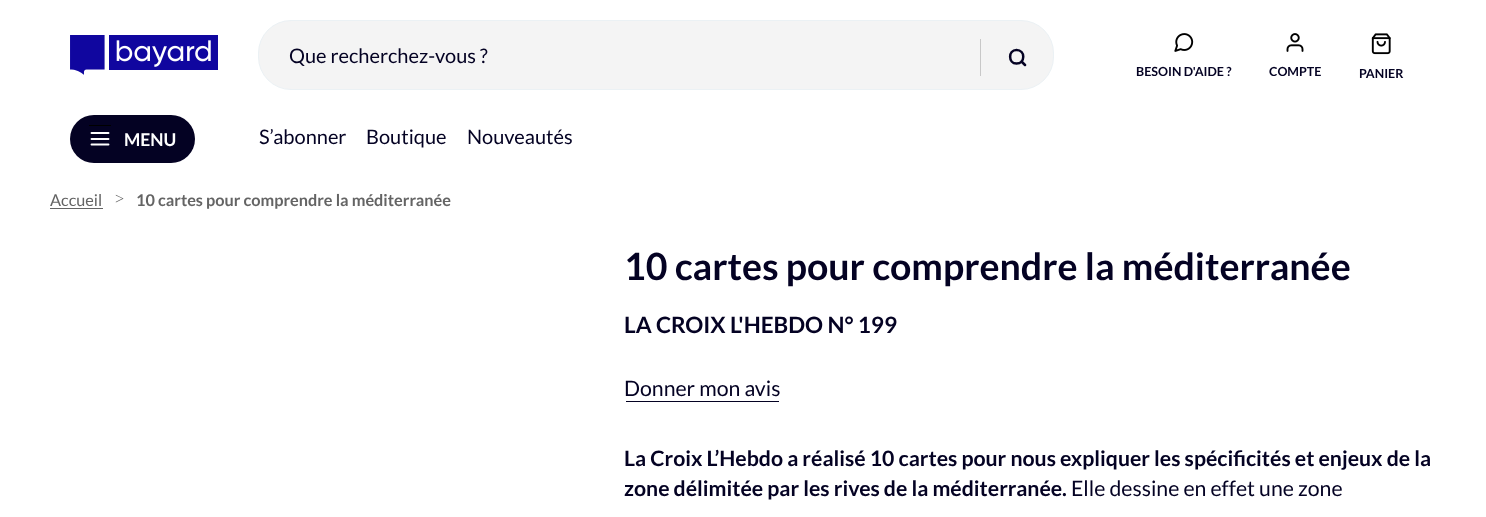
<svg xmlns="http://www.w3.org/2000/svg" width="1486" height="517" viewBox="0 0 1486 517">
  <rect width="100%" height="100%" fill="#fff"/>
  <image x="70" y="35" width="148" height="40" href="img/1.png"/>
  <rect x="258.5" y="20.5" width="795" height="69" rx="32.5" fill="#f4f4f4" stroke="#ebf1f4"/>
  <path d="M980 39h1v37H980z" fill="#c8c8c8"/>
  <path d="M1016.5 63.5C1025.5 63.5 1025.5 50 1016.5 50C1008 50 1008 63.5 1016.5 63.5ZM1025 65L1021.5 61.5" fill="none" stroke="#040223" stroke-width="2.5" stroke-linecap="round" stroke-linejoin="round"/>
  <image x="1174" y="33" width="20" height="19" href="img/2.png"/>
  <image x="1286" y="33" width="18" height="19" href="img/3.png"/>
  <image x="1371" y="33" width="20" height="22" href="img/4.png"/>
  <rect x="70" y="115" width="125" height="48" rx="24" fill="#040223"/>
  <path d="M91.5 144.5H108.5M91.5 139H108.5M91.5 133H108.5" fill="none" stroke="#fff" stroke-width="1.9" stroke-linecap="round" stroke-linejoin="round"/>
  <path d="M89 125h22v1H89z" fill="#000"/>
  <path d="M50 208h53v1H50z" fill="#646464"/>
  <path d="M626 401h153v1H626z" fill="#040223"/>
  <text x="289" y="63" font-family="Lato" font-size="20" fill="#040223">Que recherchez-vous ?</text>
  <g font-family="Lato" font-size="12.5" font-weight="bold" fill="#040223">
    <text x="1136" y="76">BESOIN D'AIDE ?</text>
    <text x="1269" y="76">COMPTE</text>
    <text x="1359" y="78">PANIER</text>
  </g>
  <text x="124" y="146" font-family="Lato" font-size="17.5" font-weight="bold" fill="#fff">MENU</text>
  <g font-family="Lato" font-size="20" fill="#040223">
    <text x="259" y="144">S’abonner</text>
    <text x="366" y="144">Boutique</text>
    <text x="467" y="144">Nouveautés</text>
  </g>
  <text x="50" y="206" font-family="Lato" font-size="16.25" fill="#646464">Accueil</text>
  <text x="115" y="204" font-family="Liberation Serif" font-size="16.25" fill="#646464">&gt;</text>
  <text x="136" y="206" font-family="Lato" font-size="16.25" font-weight="bold" fill="#646464">10 cartes pour comprendre la méditerranée</text>
  <text x="624" y="280" font-family="Lato" font-size="37.5" font-weight="bold" fill="#040223">10 cartes pour comprendre la méditerranée</text>
  <text x="624" y="333" font-family="Lato" font-size="22.5" font-weight="bold" fill="#040223">LA CROIX L'HEBDO N° 199</text>
  <text x="624" y="396" font-family="Lato" font-size="21.25" fill="#040223">Donner mon avis</text>
  <g font-family="Lato" font-size="21.25" font-weight="bold" fill="#040223">
    <text x="624" y="466">La Croix L’Hebdo a réalisé 10 cartes pour nous expliquer les spécificités et enjeux de la</text>
    <text x="624" y="496">zone délimitée par les rives de la méditerranée.</text>
  </g>
  <text x="1071" y="496" font-family="Lato" font-size="21.25" fill="#040223">Elle dessine en effet une zone</text>
</svg>
